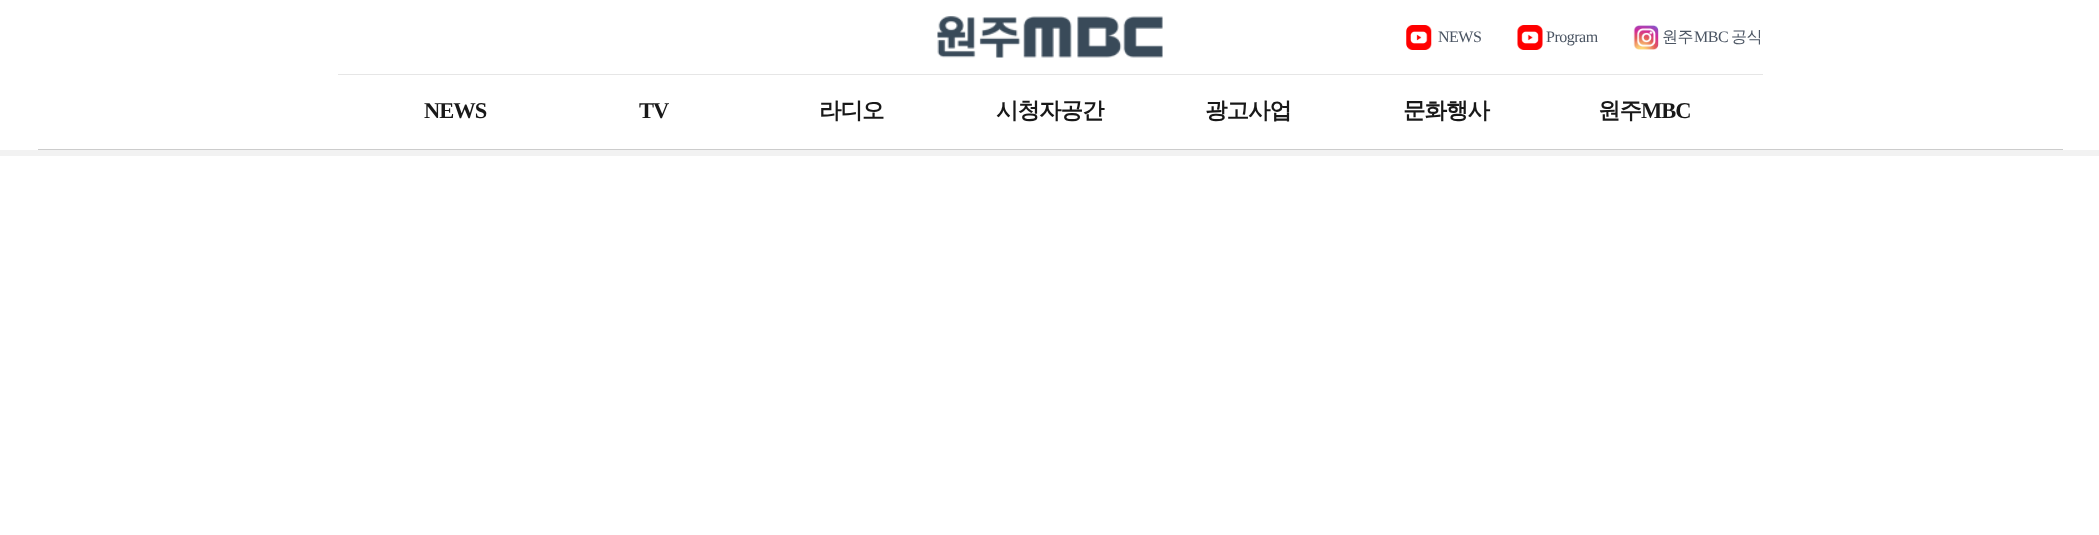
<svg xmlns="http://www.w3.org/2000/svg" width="2099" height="535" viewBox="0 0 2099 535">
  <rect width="100%" height="100%" fill="#fff"/>
  <path d="M0 150h2099v6H0z" fill="#f2f2f2"/>
  <path d="M338 74h1425v1H338z" fill="#e6e6e6"/>
  <image x="937" y="16" width="226" height="42" href="img/1.png"/>
  <image x="1406" y="25" width="26" height="25" href="img/2.png"/>
  <image x="1517" y="25" width="26" height="25" href="img/3.png"/>
  <image x="1633" y="25" width="26" height="25" href="img/4.png"/>
  <path d="M38 149h2025v1H38z" fill="#ccc"/>
  <g font-family="Liberation Serif" font-size="16" letter-spacing="-0.5" fill="#4b5563">
    <text x="1438" y="42">NEWS</text>
    <text x="1546" y="42">Program</text>
  </g>
  <text x="1662" y="42" font-family="WenQuanYi Zen Hei" font-size="16" font-weight="500" letter-spacing="-0.5" fill="#4b5563">원주</text>
  <text x="1694" y="42" font-family="Liberation Serif" font-size="16" letter-spacing="-0.5" fill="#4b5563">MBC</text>
  <text x="1731" y="42" font-family="WenQuanYi Zen Hei" font-size="16" font-weight="500" letter-spacing="-0.5" fill="#4b5563">공식</text>
  <g font-family="Liberation Serif" font-size="22.5" font-weight="bold" letter-spacing="-1" fill="#181818">
    <text x="424" y="118">NEWS</text>
    <text x="639" y="118">TV</text>
  </g>
  <g font-family="WenQuanYi Zen Hei" font-size="22.5" font-weight="bold" letter-spacing="-1" fill="#181818">
    <text x="819" y="118">라디오</text>
    <text x="996" y="118">시청자공간</text>
    <text x="1205" y="118">광고사업</text>
    <text x="1403" y="118">문화행사</text>
    <text x="1598" y="118">원주</text>
  </g>
  <text x="1641" y="118" font-family="Liberation Serif" font-size="22.5" font-weight="bold" letter-spacing="-1" fill="#181818">MBC</text>
</svg>
